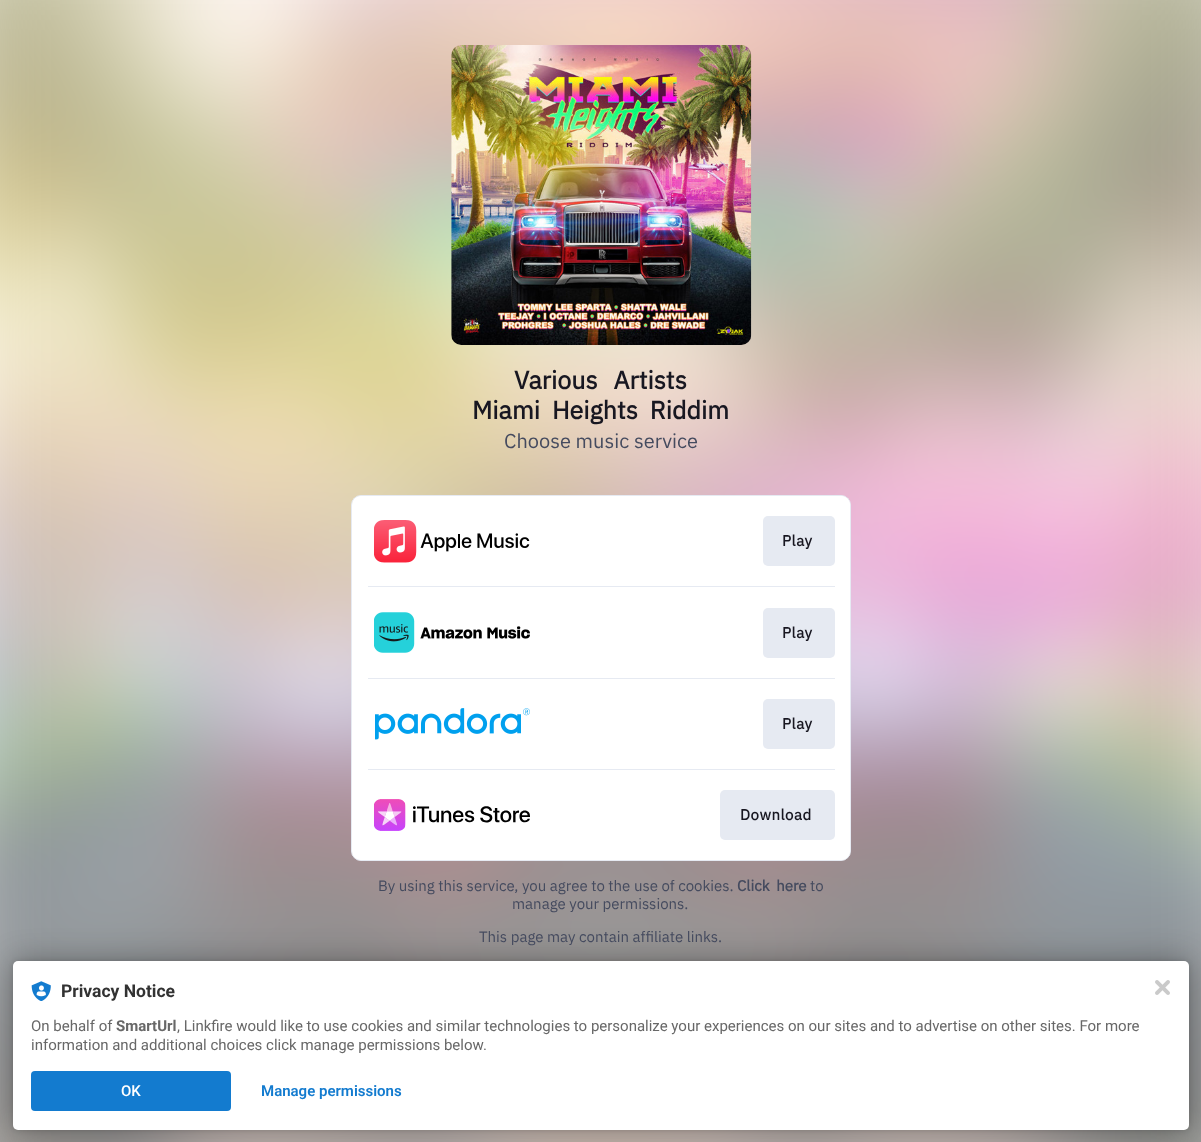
<svg xmlns="http://www.w3.org/2000/svg" width="1201" height="1142" viewBox="0 0 1201 1142">
  <rect width="100%" height="100%" fill="#fff"/>
  <image x="0" y="0" width="1201" height="1142" href="img/1.png"/>
  <image x="451" y="45" width="301" height="300" href="img/2.png"/>
  <rect x="351.5" y="495.5" width="499" height="365" rx="9.5" fill="#fff" stroke="#e6eaf2"/>
  <rect x="353" y="496" width="497" height="364" rx="9" fill="#fff"/>
  <image x="374" y="520" width="156" height="43" href="img/3.png"/>
  <rect x="763" y="516" width="72" height="50" rx="5" fill="#e6eaf2"/>
  <path d="M368 586h467v1H368z" fill="#e6eaf2"/>
  <image x="374" y="612" width="156" height="41" href="img/4.png"/>
  <rect x="763" y="608" width="72" height="50" rx="5" fill="#e6eaf2"/>
  <path d="M368 678h467v1H368z" fill="#e6eaf2"/>
  <image x="375" y="708" width="155" height="32" href="img/5.png"/>
  <rect x="763" y="699" width="72" height="50" rx="5" fill="#e6eaf2"/>
  <path d="M368 769h467v1H368z" fill="#e6eaf2"/>
  <image x="374" y="799" width="156" height="32" href="img/6.png"/>
  <rect x="720" y="790" width="115" height="50" rx="5" fill="#e6eaf2"/>
  <rect x="13" y="961" width="1176" height="169" rx="5" fill="#0000001f" filter="blur(2.5px)"/>
  <rect x="13" y="961" width="1176" height="169" rx="5" fill="#0000004d" filter="blur(15px)"/>
  <rect x="13" y="961" width="1176" height="169" rx="5" fill="#fff"/>
  <image x="31" y="981" width="20" height="20" href="img/7.png"/>
  <rect x="31" y="1071" width="200" height="40" rx="4" fill="#137bcf"/>
  <image x="1155" y="980" width="15" height="15" href="img/8.png"/>
  <g font-family="IBM Plex Sans" font-size="25" font-weight="bold" fill="#181721">
    <text x="514" y="389" word-spacing="10">Various Artists</text>
    <text x="472" y="419" word-spacing="6">Miami Heights Riddim</text>
  </g>
  <text x="504" y="448" font-family="IBM Plex Sans" font-size="20" fill="#454b5f">Choose music service</text>
  <g font-family="IBM Plex Sans" font-size="15" font-weight="bold" letter-spacing="0.5" fill="#181721">
    <text x="782" y="546">Play</text>
    <text x="782" y="638">Play</text>
    <text x="782" y="729">Play</text>
    <text x="740" y="820">Download</text>
  </g>
  <text x="378" y="891" font-family="IBM Plex Sans" font-size="15" fill="#454b5f">By using this service, you agree to the use of cookies.</text>
  <text x="737" y="891" word-spacing="3" font-family="IBM Plex Sans" font-size="15" font-weight="bold" fill="#454b5f">Click here</text>
  <g font-family="IBM Plex Sans" font-size="15" fill="#454b5f">
    <text x="810" y="891">to</text>
    <text x="512" y="909">manage your permissions.</text>
    <text x="479" y="942">This page may contain affiliate links.</text>
  </g>
  <text x="61" y="997" font-family="Roboto" font-size="17.5" font-weight="bold" fill="#323232">Privacy Notice</text>
  <text x="31" y="1031" font-family="Roboto" font-size="15" fill="#686868">On behalf of</text>
  <text x="116" y="1031" font-family="Roboto" font-size="15" font-weight="bold" fill="#686868">SmartUrl</text>
  <g font-family="Roboto" font-size="15" fill="#686868">
    <text x="177" y="1031">, Linkfire would like to use cookies and similar technologies to personalize your experiences on our sites and to advertise on other sites. For more</text>
    <text x="31" y="1050">information and additional choices click manage permissions below.</text>
  </g>
  <text x="121" y="1096" font-family="Roboto" font-size="15" font-weight="500" fill="#fff">OK</text>
  <text x="261" y="1096" font-family="Roboto" font-size="15" font-weight="600" fill="#137bcf">Manage permissions</text>
</svg>
